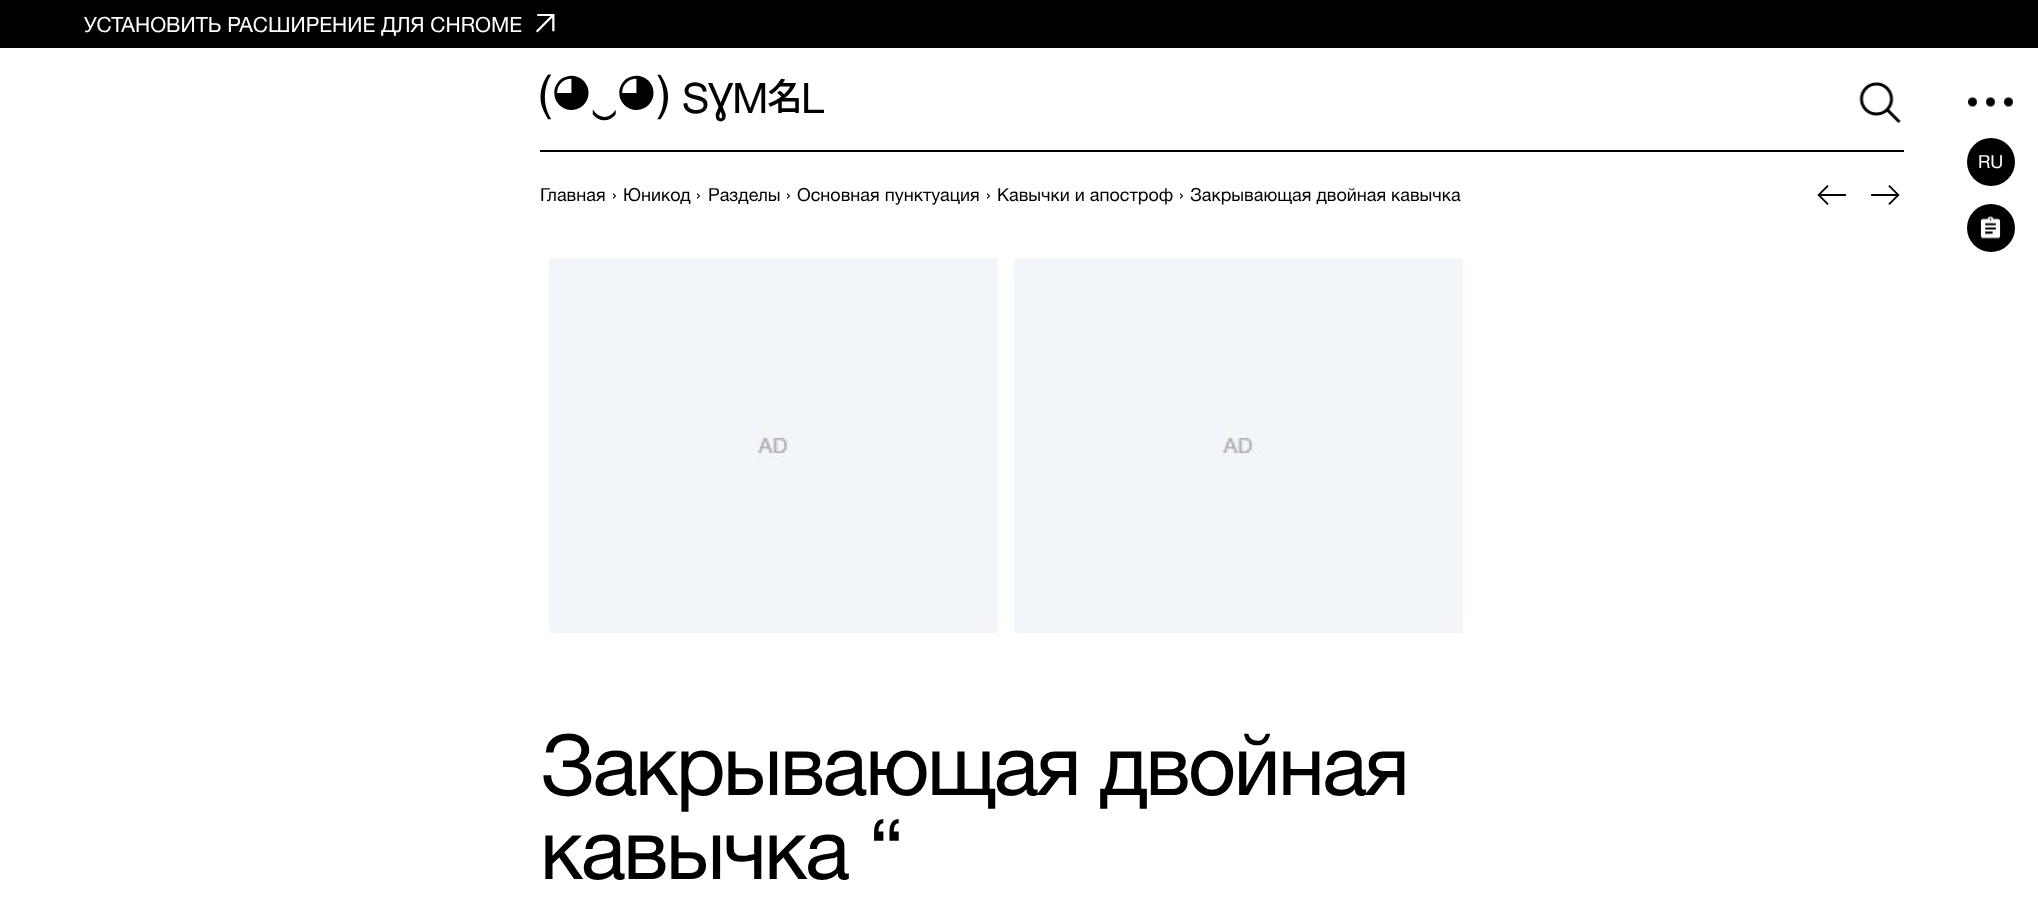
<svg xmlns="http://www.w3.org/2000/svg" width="2038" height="919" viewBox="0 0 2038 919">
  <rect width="100%" height="100%" fill="#fff"/>
  <path d="M0 0h2038v48H0z" fill="#000"/>
  <image x="536" y="14" width="19" height="19" href="img/1.png"/>
  <path d="M540 150h1364v2H540z" fill="#000"/>
  <image x="1859" y="82" width="42" height="41" href="img/2.png"/>
  <image x="1817" y="185" width="29" height="20" href="img/3.png"/>
  <image x="1871" y="185" width="29" height="20" href="img/4.png"/>
  <image x="549" y="258" width="914" height="375" href="img/5.png"/>
  <image x="1968" y="97" width="9" height="10" href="img/6.png"/>
  <image x="1986" y="97" width="9" height="10" href="img/6.png"/>
  <image x="2004" y="97" width="9" height="10" href="img/6.png"/>
  <circle cx="1991" cy="162" r="24" fill="#000"/>
  <circle cx="1991" cy="228" r="24" fill="#000"/>
  <image x="1980" y="216" width="21" height="23" href="img/7.png"/>
  <text x="84" y="32" font-family="'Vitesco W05'" font-size="21" fill="#fff">УСТАНОВИТЬ РАСШИРЕНИЕ ДЛЯ CHROME</text>
  <text x="540" y="114" font-family="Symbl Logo" font-size="48" fill="#000">(◕‿◕)</text>
  <text x="682" y="113" font-family="Symbl Logo" font-size="42" fill="#000">SYMBL</text>
  <g font-family="'Vitesco W05'" font-size="18" fill="#000">
    <text x="540" y="201">Главная</text>
    <text x="612" y="201">›</text>
    <text x="623" y="201">Юникод</text>
    <text x="696" y="201">›</text>
    <text x="708" y="201">Разделы</text>
    <text x="786" y="201">›</text>
    <text x="797" y="201">Основная пунктуация</text>
    <text x="986" y="201">›</text>
    <text x="997" y="201">Кавычки и апостроф</text>
    <text x="1179" y="201">›</text>
    <text x="1190" y="201">Закрывающая двойная кавычка</text>
  </g>
  <g font-family="'Vitesco W05'" font-size="84" letter-spacing="-2.5" fill="#000">
    <text x="540" y="795">Закрывающая двойная</text>
    <text x="540" y="879">кавычка “</text>
  </g>
  <text x="1978" y="168" font-family="'Vitesco W05'" font-size="18" fill="#fff">RU</text>
</svg>
